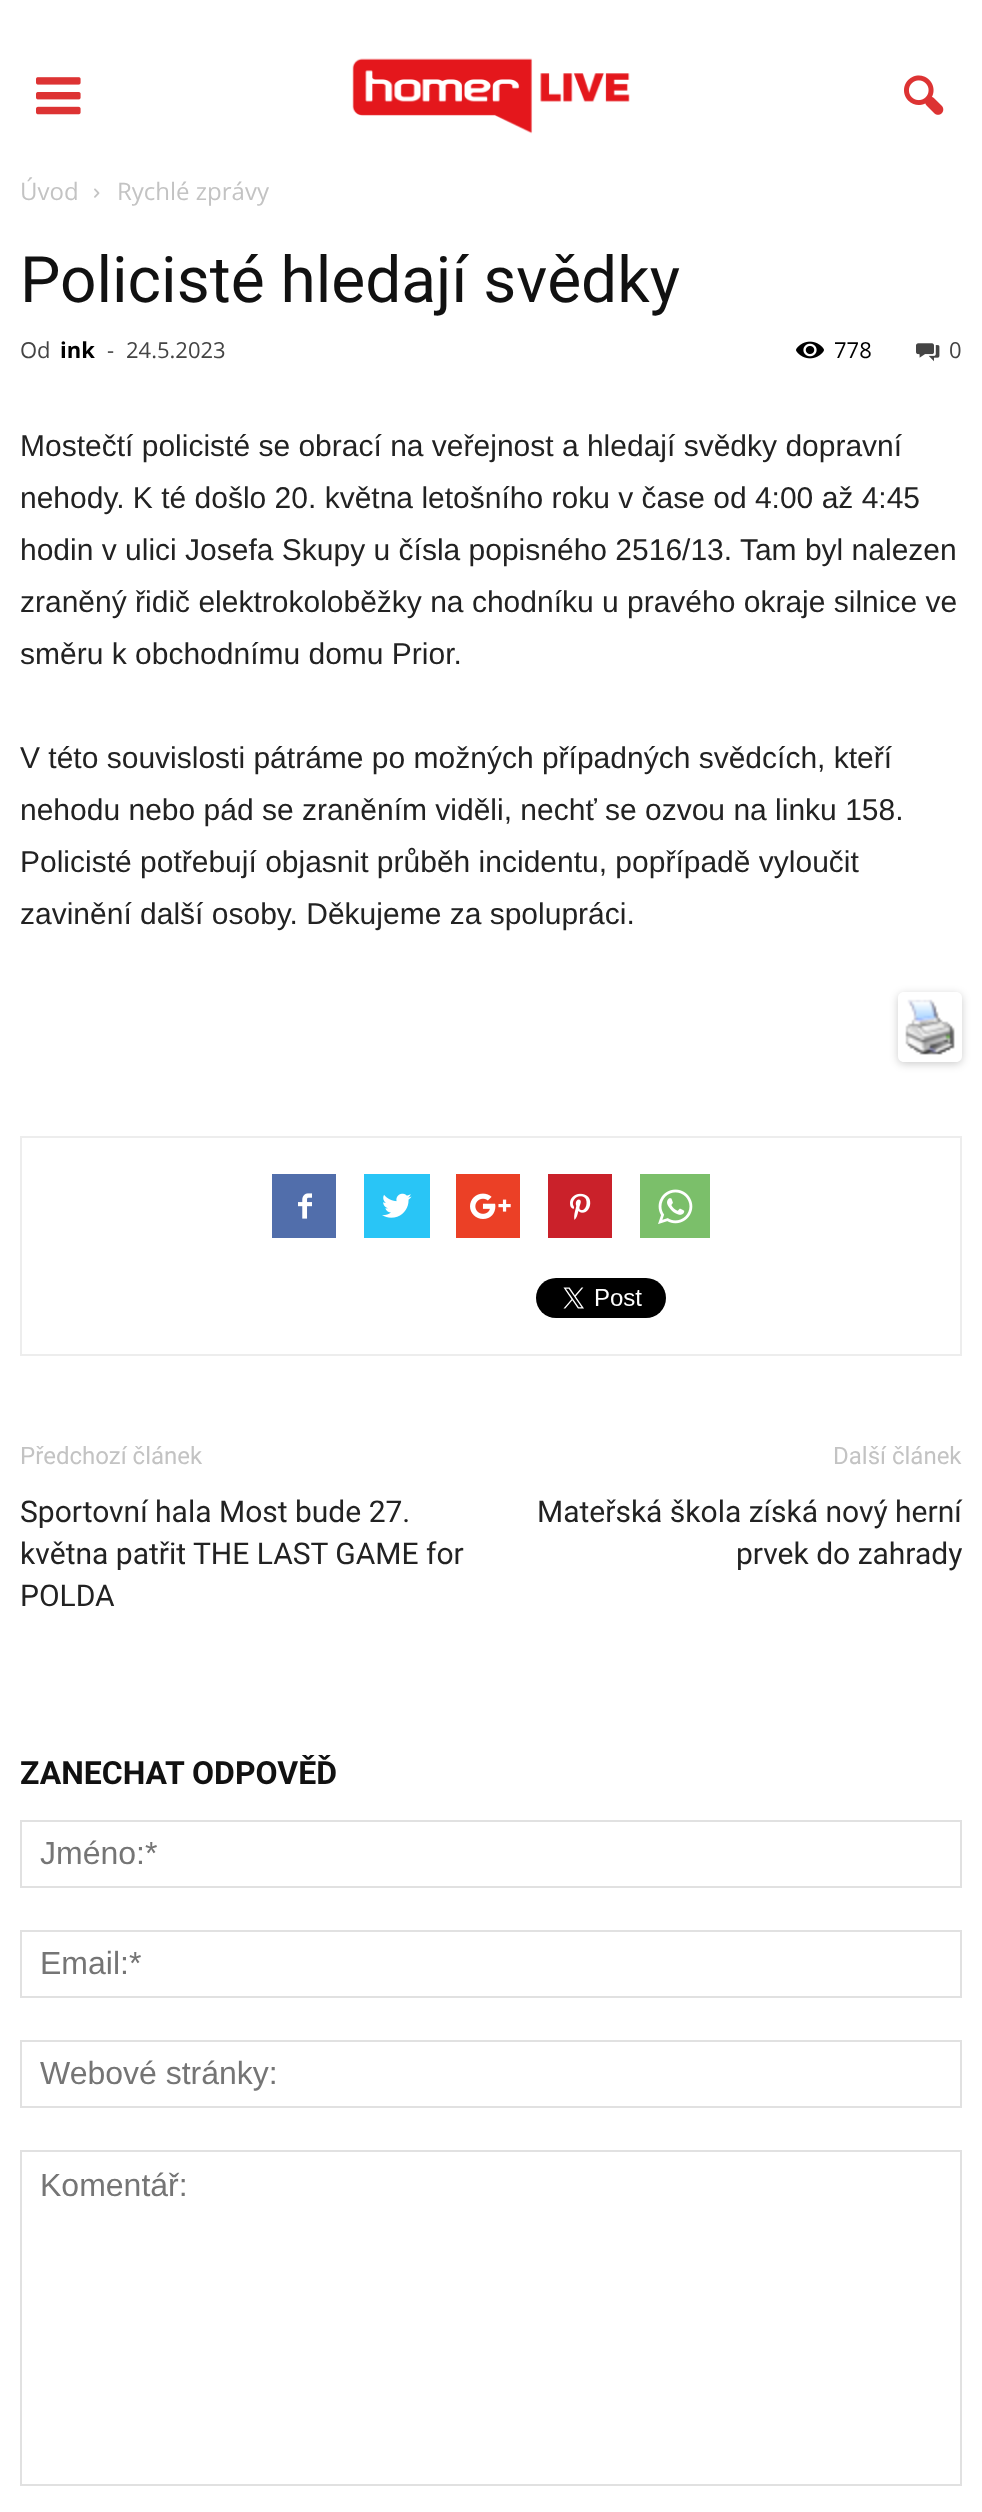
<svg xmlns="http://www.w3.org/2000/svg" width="982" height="2512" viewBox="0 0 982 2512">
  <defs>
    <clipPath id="clip1"><path d="M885 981H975V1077H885ZM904 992H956C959.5 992 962 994.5 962 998V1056C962 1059.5 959.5 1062 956 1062H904C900.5 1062 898 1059.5 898 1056V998C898 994.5 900.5 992 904 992Z" clip-rule="evenodd"/></clipPath>
  </defs>
  <rect width="100%" height="100%" fill="#fff"/>
  <image x="36" y="77" width="45" height="38" href="img/1.png"/>
  <image x="352" y="58" width="278" height="76" href="img/2.png"/>
  <image x="904" y="75" width="40" height="40" href="img/3.png"/>
  <image x="94" y="188" width="6" height="10" href="img/4.png"/>
  <image x="796" y="341" width="28" height="18" href="img/5.png"/>
  <image x="916" y="343" width="24" height="19" href="img/6.png"/>
  <g clip-path="url(#clip1)">
    <rect x="898" y="994" width="64" height="70" rx="6" fill="#00000033" filter="blur(4px)"/>
  </g>
  <image x="905" y="999" width="50" height="56" href="img/7.png"/>
  <path d="M21 1137h940v218H21z" fill="none" stroke="#ededed" stroke-width="2"/>
  <path d="M272 1174h64v64H272z" fill="#516eab"/>
  <image x="298" y="1193" width="14" height="26" href="img/8.png"/>
  <path d="M364 1174h66v64H364z" fill="#29c5f6"/>
  <image x="382" y="1193" width="30" height="25" href="img/9.png"/>
  <path d="M456 1174h64v64H456z" fill="#eb4026"/>
  <image x="470" y="1193" width="41" height="26" href="img/10.png"/>
  <path d="M548 1174h64v64H548z" fill="#ca212a"/>
  <image x="570" y="1193" width="21" height="27" href="img/11.png"/>
  <path d="M640 1174h70v64H640z" fill="#7bbf6a"/>
  <image x="658" y="1189" width="35" height="35" href="img/12.png"/>
  <image x="536" y="1278" width="130" height="40" href="img/13.png"/>
  <path d="M21 1821h940v66H21z" fill="none" stroke="#e1e1e1" stroke-width="2"/>
  <path d="M21 1931h940v66H21z" fill="none" stroke="#e1e1e1" stroke-width="2"/>
  <path d="M21 2041h940v66H21z" fill="none" stroke="#e1e1e1" stroke-width="2"/>
  <path d="M21 2151h940v334H21z" fill="none" stroke="#e1e1e1" stroke-width="2"/>
  <g font-family="Open Sans" font-size="24" fill="#c3c3c3">
    <text x="20" y="200">Úvod</text>
    <text x="117" y="200">Rychlé zprávy</text>
  </g>
  <text x="20" y="302" font-family="Roboto" font-size="64" fill="#111">Policisté hledají svědky</text>
  <text x="20" y="358" font-family="Open Sans" font-size="22" fill="#444">Od</text>
  <text x="60" y="358" font-family="Open Sans" font-size="22" font-weight="bold" fill="#000">ink</text>
  <g font-family="Open Sans" font-size="22" fill="#444">
    <text x="107" y="358">-</text>
    <text x="126" y="358">24.5.2023</text>
  </g>
  <text x="834" y="358" font-family="Open Sans" font-size="22" fill="#000">778</text>
  <text x="949" y="358" font-family="Open Sans" font-size="22" fill="#444">0</text>
  <g font-family="Liberation Sans" font-size="30" fill="#222">
    <text x="20" y="456">Mostečtí policisté se obrací na veřejnost a hledají svědky dopravní</text>
    <text x="20" y="508">nehody. K té došlo 20. května letošního roku v čase od 4:00 až 4:45</text>
    <text x="20" y="560">hodin v ulici Josefa Skupy u čísla popisného 2516/13. Tam byl nalezen</text>
    <text x="20" y="612">zraněný řidič elektrokoloběžky na chodníku u pravého okraje silnice ve</text>
    <text x="20" y="664">směru k obchodnímu domu Prior.</text>
    <text x="20" y="768">V této souvislosti pátráme po možných případných svědcích, kteří</text>
    <text x="20" y="820">nehodu nebo pád se zraněním viděli, nechť se ozvou na linku 158.</text>
    <text x="20" y="872">Policisté potřebují objasnit průběh incidentu, popřípadě vyloučit</text>
    <text x="20" y="924">zavinění další osoby. Děkujeme za spolupráci.</text>
  </g>
  <text x="20" y="1464" font-family="Roboto" font-size="24" fill="#c3c3c3">Předchozí článek</text>
  <g font-family="Roboto" font-size="30" fill="#222">
    <text x="20" y="1522">Sportovní hala Most bude 27.</text>
    <text x="20" y="1564">května patřit THE LAST GAME for</text>
    <text x="20" y="1606">POLDA</text>
  </g>
  <text x="833" y="1464" font-family="Roboto" font-size="24" fill="#c3c3c3">Další článek</text>
  <g font-family="Roboto" font-size="30" fill="#222">
    <text x="537" y="1522">Mateřská škola získá nový herní</text>
    <text x="736" y="1564">prvek do zahrady</text>
  </g>
  <text x="20" y="1784" font-family="Roboto" font-size="32" font-weight="bold" fill="#111">ZANECHAT ODPOVĚĎ</text>
  <g font-family="Liberation Sans" font-size="32" fill="#757575">
    <text x="40" y="1864">Jméno:*</text>
    <text x="40" y="1974">Email:*</text>
    <text x="40" y="2084">Webové stránky:</text>
    <text x="40" y="2196">Komentář:</text>
  </g>
</svg>
